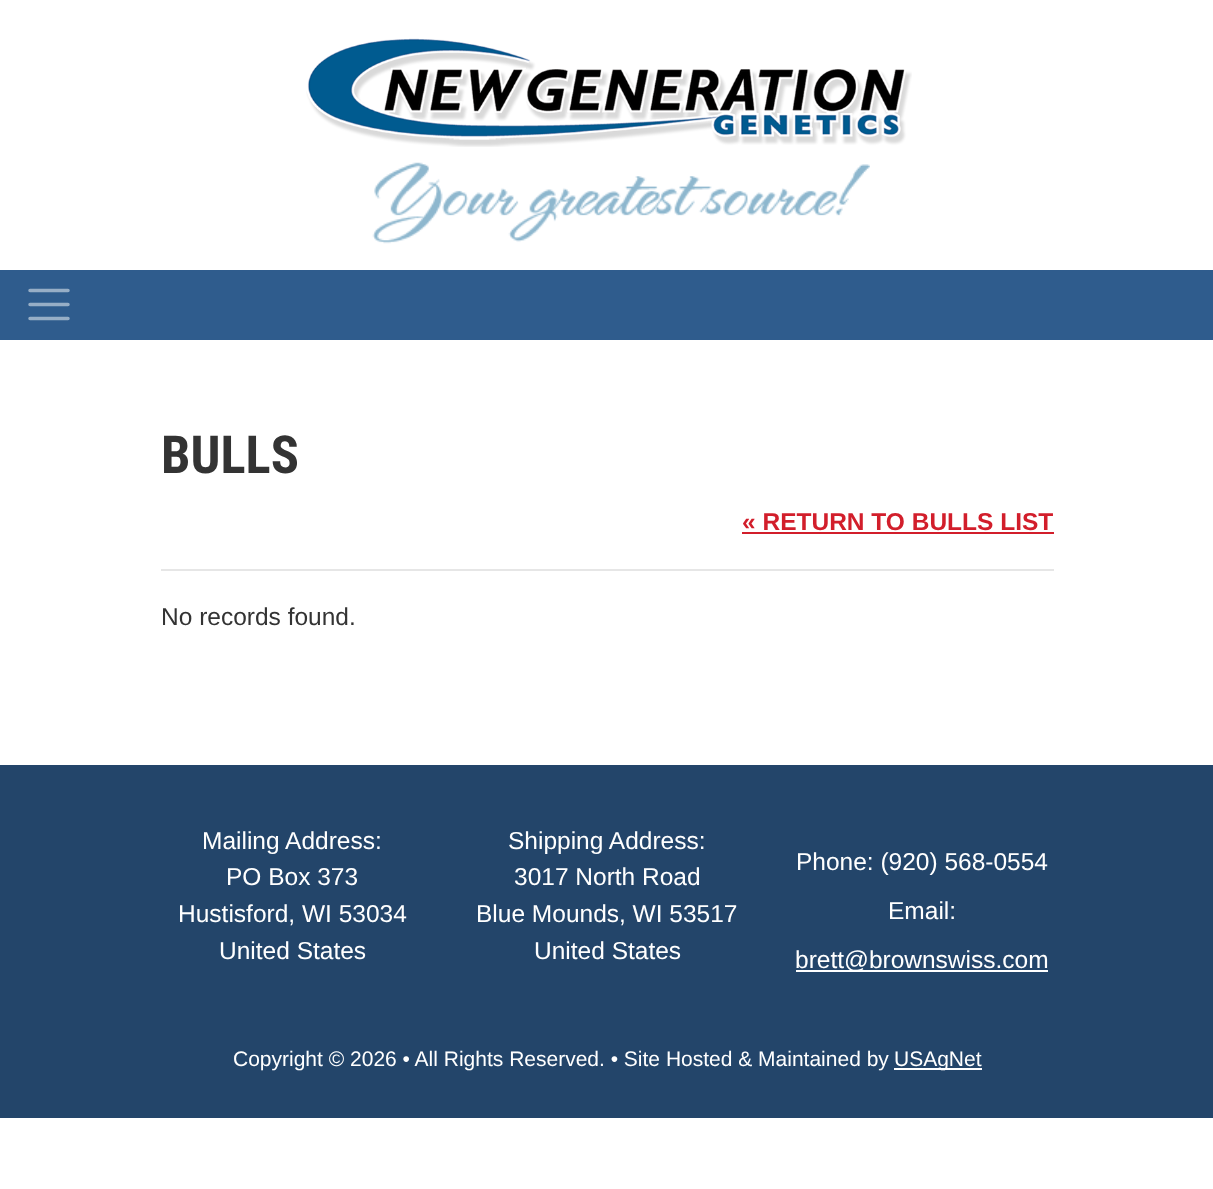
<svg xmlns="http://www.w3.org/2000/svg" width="1213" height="1189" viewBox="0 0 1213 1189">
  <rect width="100%" height="100%" fill="#fff"/>
  <image x="306" y="38" width="606" height="109" href="img/1.png"/>
  <image x="372" y="162" width="498" height="82" href="img/2.png"/>
  <path d="M0 270h1213v70H0z" fill="#2f5c8d"/>
  <path d="M30 290.5H68M30 304.5H68M30 318.5H68" fill="none" stroke="#97aec6" stroke-width="3.5" stroke-linecap="round"/>
  <path d="M742 532h312v2H742z" fill="#d21e2b"/>
  <path d="M161 569h893v2H161z" fill="#e6e6e6"/>
  <path d="M0 765h1213v353H0z" fill="#23456a"/>
  <path d="M796 970h252v2H796z" fill="#fff"/>
  <path d="M894 1068h88v2H894z" fill="#fff"/>
  <text x="161" y="473" font-family="Roboto Condensed" font-size="52.5" font-weight="bold" fill="#333">BULLS</text>
  <text x="742" y="530" font-family="Liberation Sans" font-size="24.5" font-weight="bold" fill="#d21e2b">« RETURN TO BULLS LIST</text>
  <text x="161" y="625" font-family="Liberation Sans" font-size="24.5" fill="#333">No records found.</text>
  <g font-family="Liberation Sans" font-size="24.5" fill="#fff">
    <text x="202" y="849">Mailing Address:</text>
    <text x="226" y="885">PO Box 373</text>
    <text x="178" y="922">Hustisford, WI 53034</text>
    <text x="219" y="959">United States</text>
    <text x="508" y="849">Shipping Address:</text>
    <text x="514" y="885">3017 North Road</text>
    <text x="476" y="922">Blue Mounds, WI 53517</text>
    <text x="534" y="959">United States</text>
    <text x="796" y="870">Phone: (920) 568-0554</text>
    <text x="888" y="919">Email:</text>
    <text x="795" y="968">brett@brownswiss.com</text>
  </g>
  <g font-family="Liberation Sans" font-size="21" fill="#fff">
    <text x="233" y="1066">Copyright © 2026 • All Rights Reserved. • Site Hosted &amp; Maintained by</text>
    <text x="894" y="1066">USAgNet</text>
  </g>
</svg>
